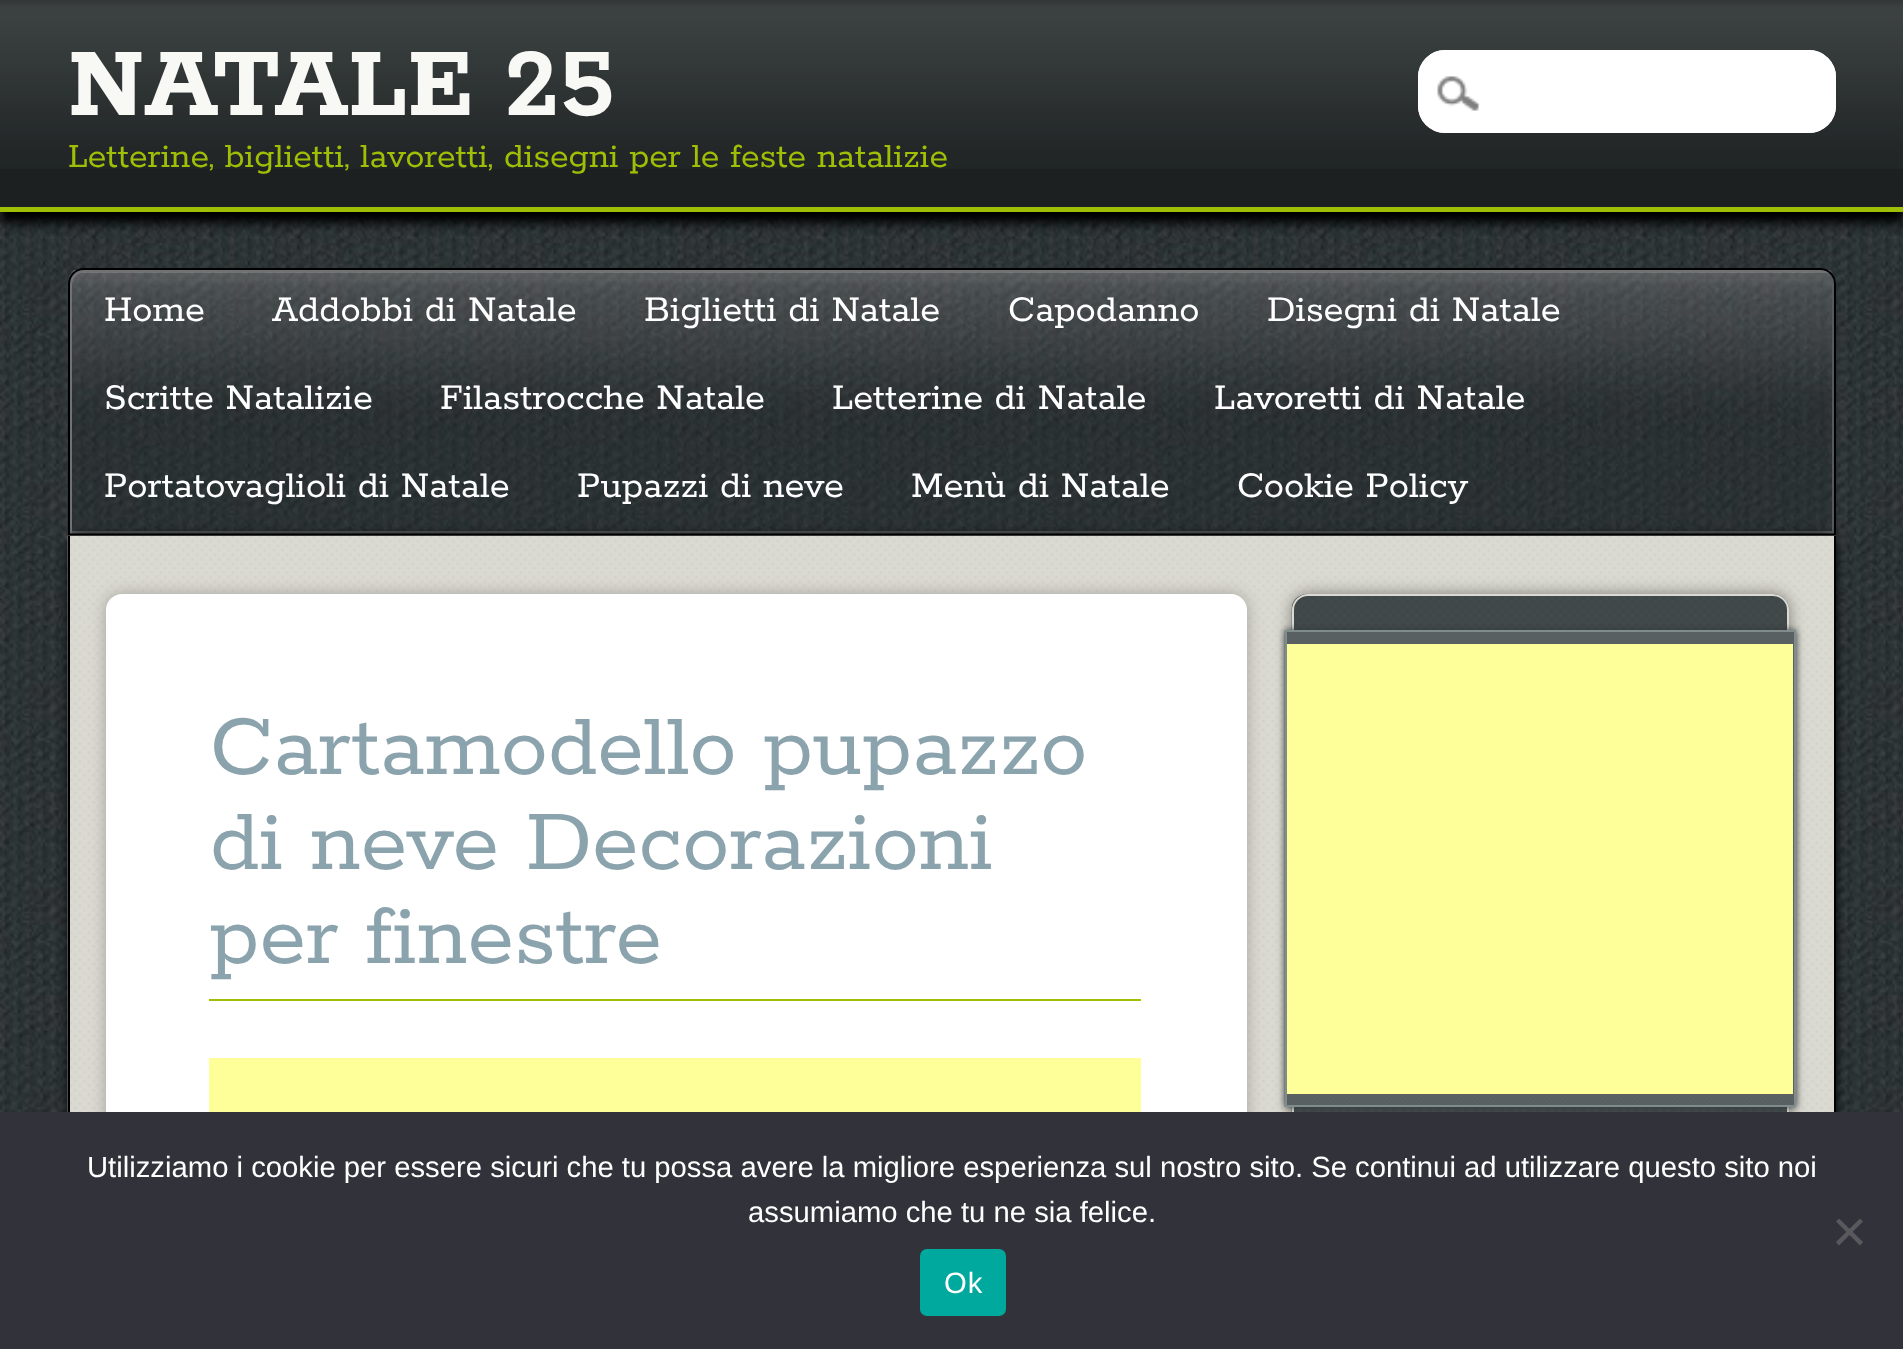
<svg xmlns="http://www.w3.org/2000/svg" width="1903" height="1349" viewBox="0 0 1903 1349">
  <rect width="100%" height="100%" fill="#fff"/>
  <image x="0" y="212" width="1903" height="900" href="img/1.png"/>
  <path d="M0 11h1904v212H0z" fill="#000" filter="blur(5.5px)"/>
  <path d="M0 169h1903v38H0z" fill="#1d2021"/>
  <image x="0" y="0" width="1903" height="169" href="img/2.png"/>
  <path d="M0 207h1903v5H0z" fill="#9fbf06"/>
  <image x="67" y="270" width="1769" height="265" href="img/3.png"/>
  <path d="M70 531V533H1834V284C1834 280 1832 276 1829 273C1831 275 1832 278 1832 281V531Z" fill="#575a5b"/>
  <path d="M86 272H1822C1825 272 1828 273 1830 275C1828 272 1824 270 1820 270H84C76 270 70 276 70 284V533H72V286C72 278 78 272 86 272Z" fill="#707273"/>
  <path d="M84 269H1820C1828.5 269 1835 275.5 1835 284V535H69V284C69 275.5 75.5 269 84 269Z" fill="none" stroke="#000" stroke-width="2"/>
  <rect x="1418" y="50" width="418" height="83" rx="27" fill="#fff"/>
  <image x="1437" y="76" width="43" height="35" href="img/4.png"/>
  <rect x="1419" y="51" width="416" height="81" rx="26" fill="none" stroke="#fff" stroke-width="2"/>
  <rect x="68" y="536" width="1768" height="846" rx="16" fill="#000" filter="blur(5.5px)"/>
  <image x="67" y="535" width="1769" height="577" href="img/5.png"/>
  <path d="M68 536H1836V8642C1836 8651 1829 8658 1820 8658H83C75 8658 68 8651 68 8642ZM70 536H1834V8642C1834 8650 1828 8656 1820 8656H83C76 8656 70 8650 70 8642Z" fill="#000" fill-rule="evenodd"/>
  <rect x="106" y="594" width="1141" height="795" rx="16" fill="#a2a19b" filter="blur(8px)"/>
  <rect x="107" y="595" width="1139" height="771" rx="15" fill="#fff" stroke="#fff" stroke-width="2"/>
  <path d="M209 999h932v2H209z" fill="#9fbf06"/>
  <path d="M209 1058h932v54H209z" fill="#ff9"/>
  <rect x="1292" y="594" width="497" height="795" rx="16" fill="#7d7c78" filter="blur(8px)"/>
  <image x="1291" y="594" width="498" height="518" href="img/6.png"/>
  <rect x="1293" y="595" width="495" height="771" rx="15" fill="none" stroke="#dbdad2" stroke-width="2"/>
  <path d="M1285 630h511v477H1285z" fill="#33393a" filter="blur(3.5px)"/>
  <image x="1284" y="630" width="510" height="477" href="img/7.png"/>
  <path d="M1286 631h509v475H1286z" fill="none" stroke="#808b8c" stroke-width="2"/>
  <path d="M1287 644h506v450H1287z" fill="#ff9"/>
  <path d="M0 1112h1903v237H0z" fill="#32323a"/>
  <path d="M1860 1218.5L1863 1221.5L1839 1245.5L1836 1242Z" fill="#59595d"/>
  <path d="M1836 1221.5L1839 1218.5L1863 1242L1860 1245.5Z" fill="#59595d"/>
  <rect x="920" y="1249" width="86" height="67" rx="7" fill="#00a99d"/>
  <text x="68" y="115" font-family="Rokkitt" font-size="108" font-weight="bold" fill="#f8f8f5">NATALE 25</text>
  <text x="68" y="167" font-family="Rokkitt" font-size="37.8" fill="#9fbf06">Letterine, biglietti, lavoretti, disegni per le feste natalizie</text>
  <g font-family="Rokkitt" font-size="40.5" fill="#fff">
    <text x="104" y="321">Home</text>
    <text x="272" y="321">Addobbi di Natale</text>
    <text x="644" y="321">Biglietti di Natale</text>
    <text x="1008" y="321">Capodanno</text>
    <text x="1267" y="321">Disegni di Natale</text>
    <text x="104" y="409">Scritte Natalizie</text>
    <text x="440" y="409">Filastrocche Natale</text>
    <text x="832" y="409">Letterine di Natale</text>
    <text x="1214" y="409">Lavoretti di Natale</text>
    <text x="104" y="497">Portatovaglioli di Natale</text>
    <text x="577" y="497">Pupazzi di neve</text>
    <text x="911" y="497">Menù di Natale</text>
    <text x="1237" y="497">Cookie Policy</text>
  </g>
  <g font-family="Rokkitt" font-size="94.5" fill="#8ba3ad">
    <text x="210" y="774">Cartamodello pupazzo</text>
    <text x="210" y="869">di neve Decorazioni</text>
    <text x="210" y="963">per finestre</text>
  </g>
  <g font-family="Liberation Sans" font-size="29.25" fill="#fff">
    <text x="87" y="1177">Utilizziamo i cookie per essere sicuri che tu possa avere la migliore esperienza sul nostro sito. Se continui ad utilizzare questo sito noi</text>
    <text x="748" y="1222">assumiamo che tu ne sia felice.</text>
  </g>
  <text x="944" y="1293" font-family="Liberation Sans" font-size="29.25" letter-spacing="1" fill="#fff">Ok</text>
</svg>
